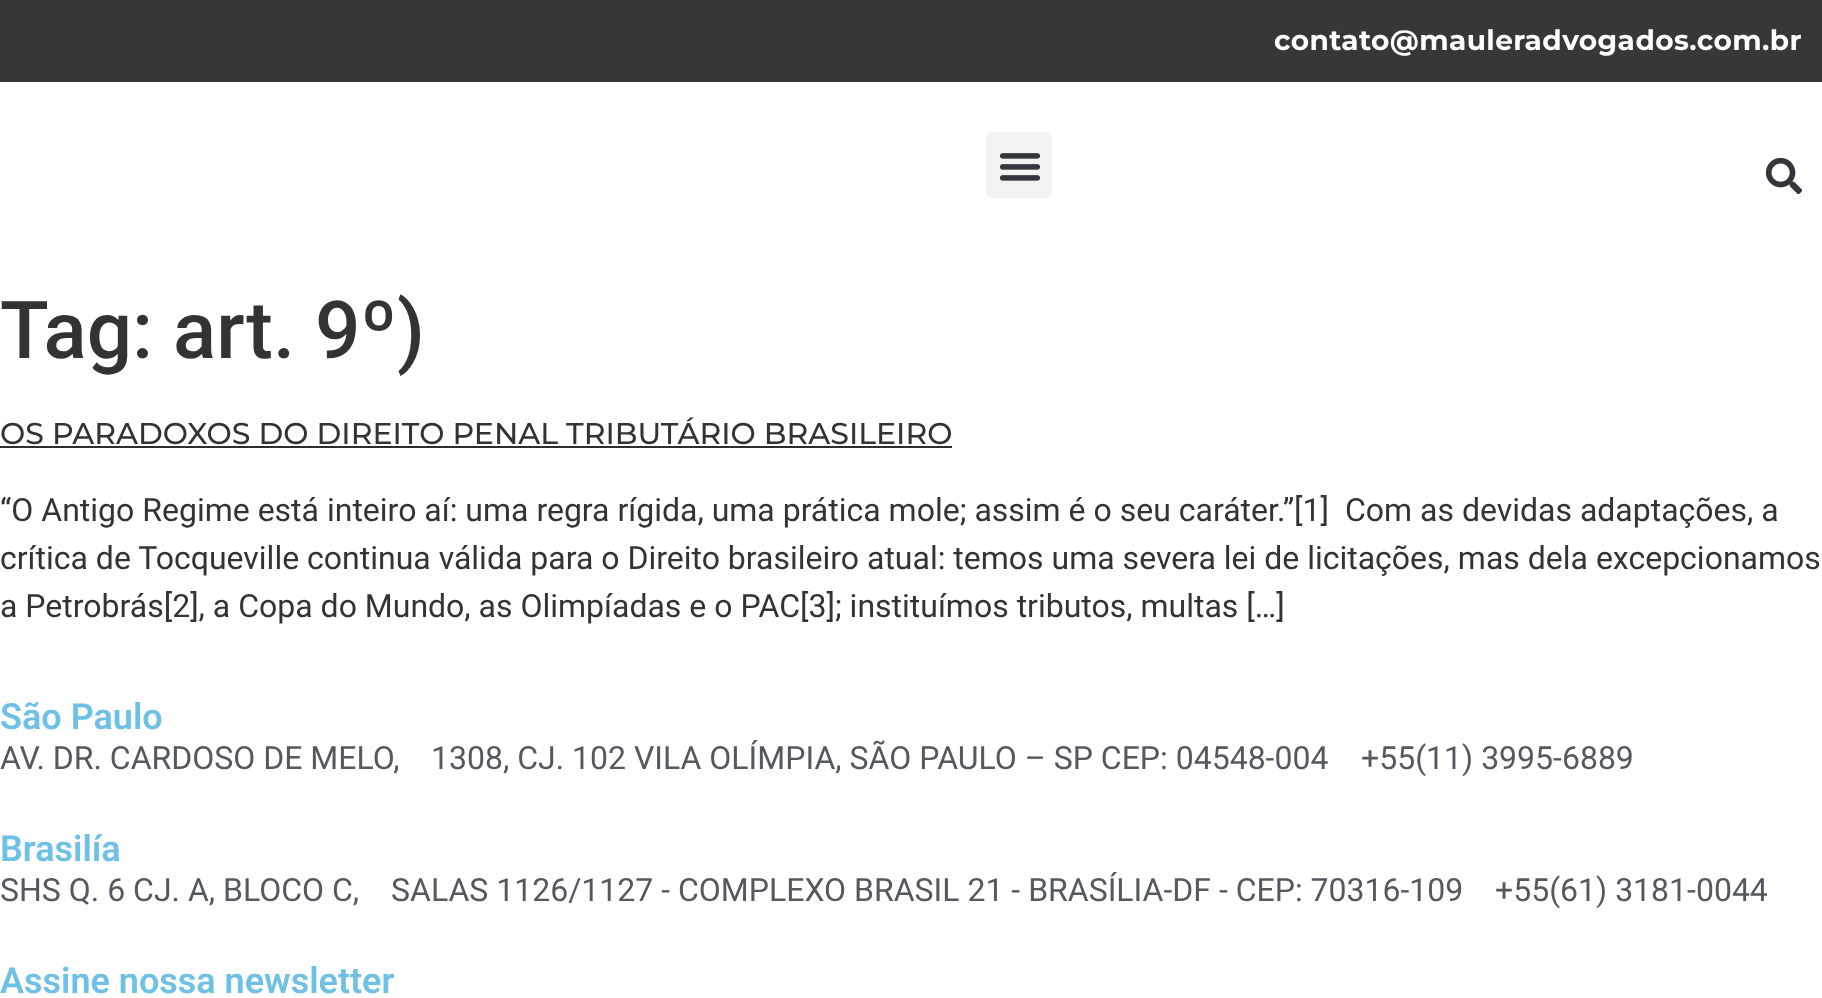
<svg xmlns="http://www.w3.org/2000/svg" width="1822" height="998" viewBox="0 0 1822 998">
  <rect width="100%" height="100%" fill="#fff"/>
  <path d="M0 0h1822v82H0z" fill="#373737"/>
  <rect x="986" y="132" width="66" height="66" rx="6" fill="#f2f2f2"/>
  <image x="999" y="153" width="42" height="28" href="img/1.png"/>
  <image x="1766" y="158" width="36" height="36" href="img/2.png"/>
  <path d="M0 446h952v2H0z" fill="#2e2e2e"/>
  <text x="1274" y="50" font-family="Montserrat" font-size="28" font-weight="bold" letter-spacing="0.4" fill="#fff">contato@mauleradvogados.com.br</text>
  <text x="0" y="358" font-family="Roboto" font-size="80" font-weight="500" fill="#333">Tag: art. 9º)</text>
  <text x="0" y="444" font-family="Montserrat" font-size="30" font-weight="500" fill="#333">OS PARADOXOS DO DIREITO PENAL TRIBUTÁRIO BRASILEIRO</text>
  <g font-family="Roboto" font-size="32" fill="#333">
    <text x="0" y="521" xml:space="preserve">“O Antigo Regime está inteiro aí: uma regra rígida, uma prática mole; assim é o seu caráter.”[1]  Com as devidas adaptações, a</text>
    <text x="0" y="569">crítica de Tocqueville continua válida para o Direito brasileiro atual: temos uma severa lei de licitações, mas dela excepcionamos</text>
    <text x="0" y="617">a Petrobrás[2], a Copa do Mundo, as Olimpíadas e o PAC[3]; instituímos tributos, multas […]</text>
  </g>
  <text x="0" y="729" font-family="Roboto" font-size="36" font-weight="600" fill="#6ec1e4">São Paulo</text>
  <g font-family="Roboto" font-size="32" fill="#54595f">
    <text x="0" y="769">AV. DR. CARDOSO DE MELO,</text>
    <text x="431" y="769">1308, CJ. 102 VILA OLÍMPIA, SÃO PAULO – SP CEP: 04548-004</text>
    <text x="1361" y="769">+55(11) 3995-6889</text>
  </g>
  <text x="0" y="861" font-family="Roboto" font-size="36" font-weight="600" fill="#6ec1e4">Brasilía</text>
  <g font-family="Roboto" font-size="32" fill="#54595f">
    <text x="0" y="901">SHS Q. 6 CJ. A, BLOCO C,</text>
    <text x="391" y="901">SALAS 1126/1127 - COMPLEXO BRASIL 21 - BRASÍLIA-DF - CEP: 70316-109</text>
    <text x="1495" y="901">+55(61) 3181-0044</text>
  </g>
  <text x="0" y="993" font-family="Roboto" font-size="36" font-weight="600" fill="#6ec1e4">Assine nossa newsletter</text>
</svg>
